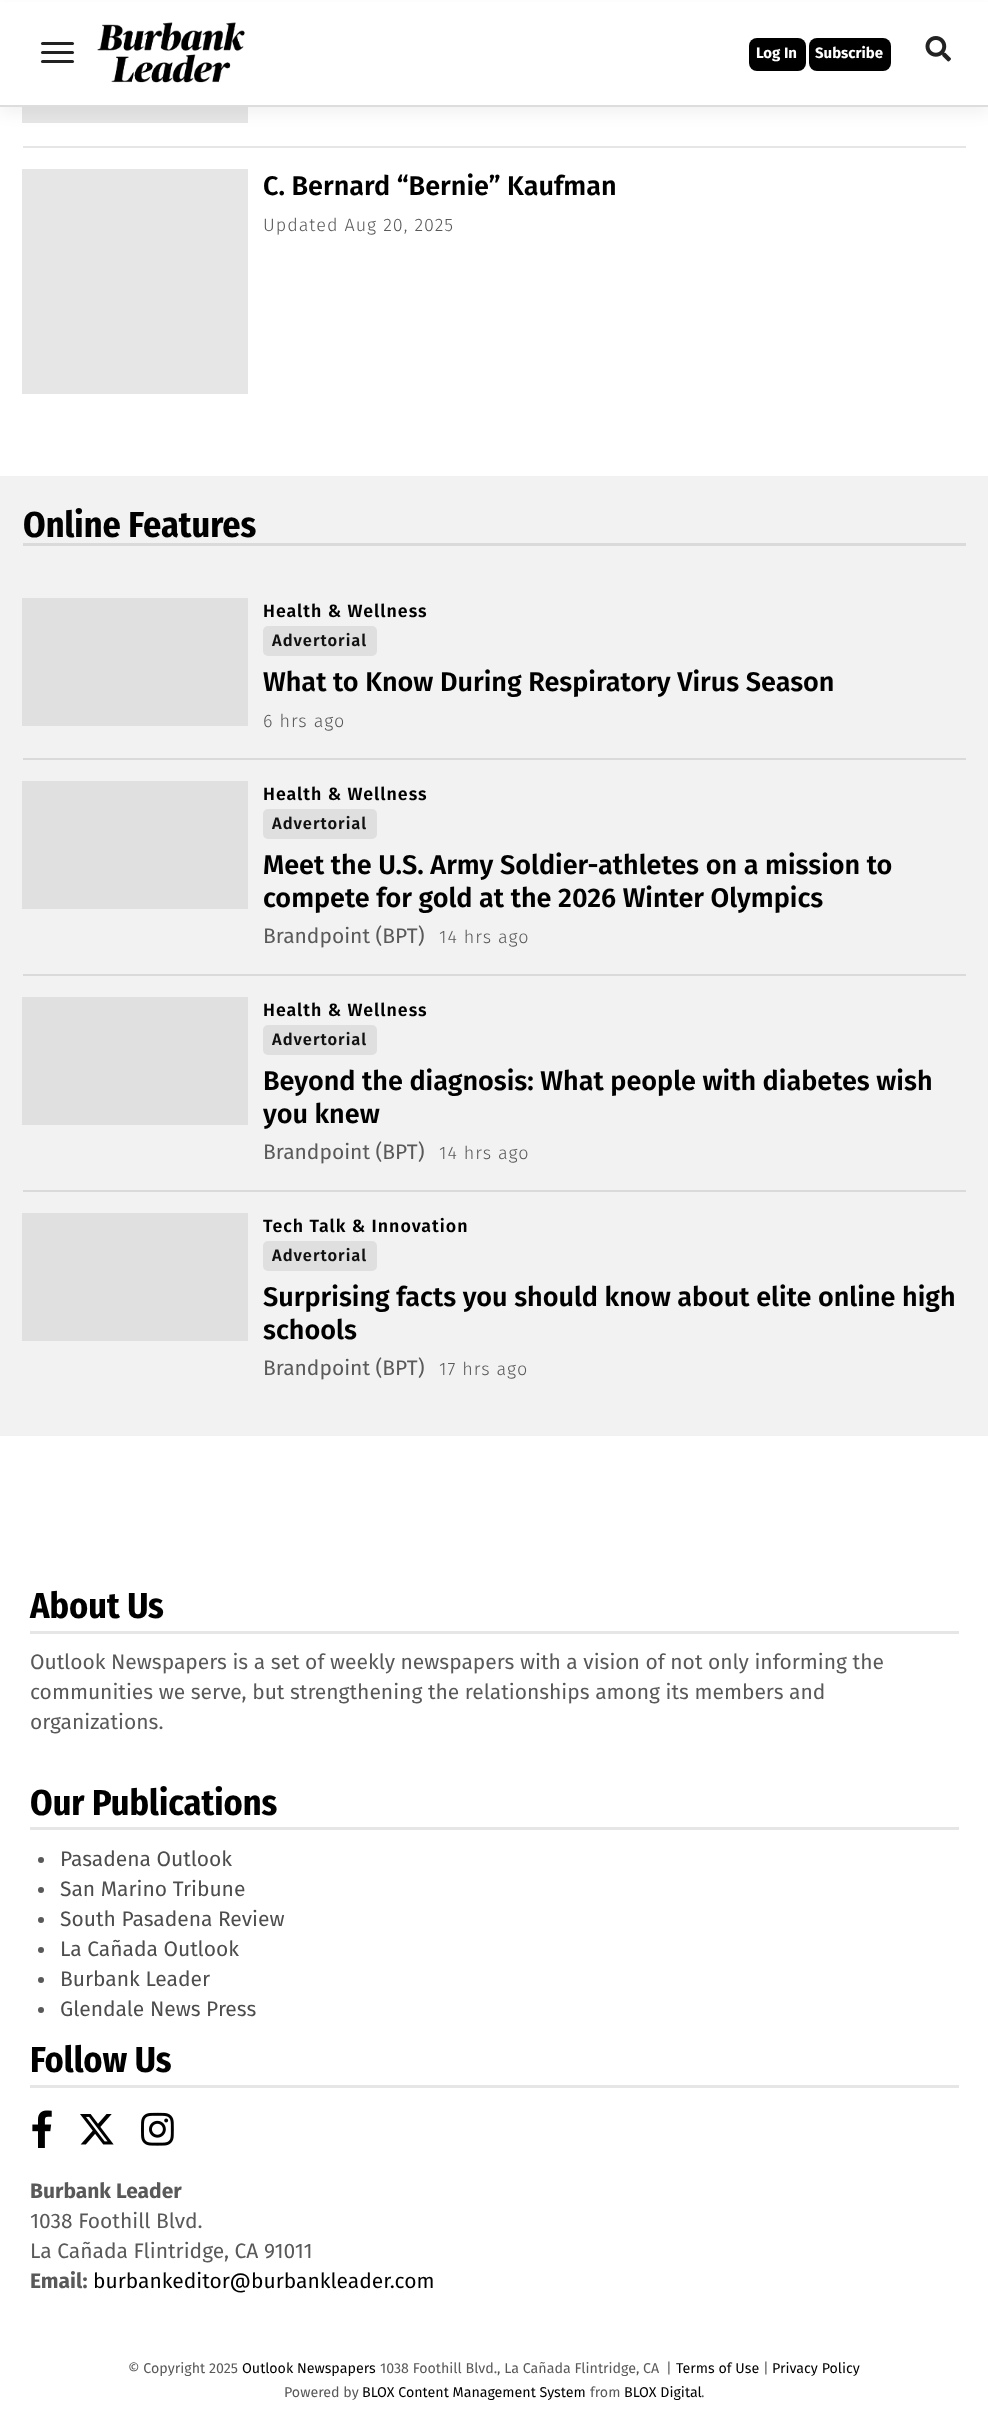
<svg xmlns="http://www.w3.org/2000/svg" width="988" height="2424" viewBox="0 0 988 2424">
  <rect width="100%" height="100%" fill="#fff"/>
  <path d="M22 107h226v16H22z" fill="#e6e6e6"/>
  <path d="M0 8h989v106H0z" fill="#0000000d" filter="blur(7.5px)"/>
  <path d="M0 2h988v103H0z" fill="#fff"/>
  <path d="M0 105h988v2H0z" fill="#ddd"/>
  <rect x="41" y="42" width="33" height="3" rx="1.5" fill="#222"/>
  <rect x="41" y="51" width="33" height="3" rx="1.5" fill="#222"/>
  <rect x="41" y="60" width="33" height="3" rx="1.5" fill="#222"/>
  <image x="97" y="22" width="148" height="61" href="img/1.png"/>
  <rect x="749" y="38" width="57" height="33" rx="8" fill="#000"/>
  <rect x="809" y="38" width="82" height="33" rx="8" fill="#000"/>
  <image x="925" y="36" width="26" height="26" href="img/2.png"/>
  <path d="M23 146h943v2H23z" fill="#e6e6e6"/>
  <path d="M22 169h226v225H22z" fill="#e6e6e6"/>
  <path d="M0 476h988v960H0z" fill="#f2f2f2"/>
  <path d="M23 543h943v3H23z" fill="#dadada"/>
  <path d="M23 758h943v2H23z" fill="#dadada"/>
  <path d="M22 598h226v128H22z" fill="#e0e0e0"/>
  <rect x="263" y="626" width="114" height="30" rx="5" fill="#dfdfdf"/>
  <path d="M23 974h943v2H23z" fill="#dadada"/>
  <path d="M22 781h226v128H22z" fill="#e0e0e0"/>
  <rect x="263" y="809" width="114" height="30" rx="5" fill="#dfdfdf"/>
  <path d="M23 1190h943v2H23z" fill="#dadada"/>
  <path d="M22 997h226v128H22z" fill="#e0e0e0"/>
  <rect x="263" y="1025" width="114" height="30" rx="5" fill="#dfdfdf"/>
  <path d="M22 1213h226v128H22z" fill="#e0e0e0"/>
  <rect x="263" y="1241" width="114" height="30" rx="5" fill="#dfdfdf"/>
  <path d="M30 1631h929v3H30z" fill="#e6e6e6"/>
  <path d="M30 1827h929v3H30z" fill="#e6e6e6"/>
  <circle cx="41" cy="1860" r="3" fill="#595959"/>
  <circle cx="41" cy="1890" r="3" fill="#595959"/>
  <circle cx="41" cy="1920" r="3" fill="#595959"/>
  <circle cx="41" cy="1950" r="3" fill="#595959"/>
  <circle cx="41" cy="1980" r="3" fill="#595959"/>
  <circle cx="41" cy="2010" r="3" fill="#595959"/>
  <path d="M30 2085h929v3H30z" fill="#e6e6e6"/>
  <image x="32" y="2110" width="20" height="38" href="img/3.png"/>
  <image x="80" y="2114" width="34" height="31" href="img/4.png"/>
  <image x="141" y="2112" width="33" height="34" href="img/5.png"/>
  <g font-family="Fira Sans" font-size="15" font-weight="bold" fill="#fff">
    <text x="756" y="58">Log In</text>
    <text x="815" y="58">Subscribe</text>
  </g>
  <text x="263" y="195" font-family="Fira Sans" font-size="27" font-weight="600" fill="#000">C. Bernard “Bernie” Kaufman</text>
  <text x="263" y="231" font-family="Fira Sans" font-size="18" font-weight="300" letter-spacing="1" fill="#595959">Updated Aug 20, 2025</text>
  <text x="23" y="537" font-family="Fira Sans Condensed" font-size="36" font-weight="bold" fill="#000">Online Features</text>
  <text x="263" y="617" font-family="Fira Sans" font-size="17.8" font-weight="600" letter-spacing="1" fill="#000">Health &amp; Wellness</text>
  <text x="272" y="646" font-family="Fira Sans" font-size="16.5" font-weight="600" letter-spacing="1" fill="#111">Advertorial</text>
  <text x="263" y="691" font-family="Fira Sans" font-size="27" font-weight="600" fill="#000">What to Know During Respiratory Virus Season</text>
  <text x="263" y="727" font-family="Fira Sans" font-size="18" font-weight="300" letter-spacing="1" fill="#595959">6 hrs ago</text>
  <text x="263" y="800" font-family="Fira Sans" font-size="17.8" font-weight="600" letter-spacing="1" fill="#000">Health &amp; Wellness</text>
  <text x="272" y="829" font-family="Fira Sans" font-size="16.5" font-weight="600" letter-spacing="1" fill="#111">Advertorial</text>
  <g font-family="Fira Sans" font-size="27" font-weight="600" fill="#000">
    <text x="263" y="874">Meet the U.S. Army Soldier-athletes on a mission to</text>
    <text x="263" y="907">compete for gold at the 2026 Winter Olympics</text>
  </g>
  <text x="263" y="943" font-family="Fira Sans" font-size="21" fill="#595959">Brandpoint (BPT)</text>
  <text x="439" y="943" font-family="Fira Sans" font-size="18" font-weight="300" letter-spacing="1" fill="#595959">14 hrs ago</text>
  <text x="263" y="1016" font-family="Fira Sans" font-size="17.8" font-weight="600" letter-spacing="1" fill="#000">Health &amp; Wellness</text>
  <text x="272" y="1045" font-family="Fira Sans" font-size="16.5" font-weight="600" letter-spacing="1" fill="#111">Advertorial</text>
  <g font-family="Fira Sans" font-size="27" font-weight="600" fill="#000">
    <text x="263" y="1090">Beyond the diagnosis: What people with diabetes wish</text>
    <text x="263" y="1123">you knew</text>
  </g>
  <text x="263" y="1159" font-family="Fira Sans" font-size="21" fill="#595959">Brandpoint (BPT)</text>
  <text x="439" y="1159" font-family="Fira Sans" font-size="18" font-weight="300" letter-spacing="1" fill="#595959">14 hrs ago</text>
  <text x="263" y="1232" font-family="Fira Sans" font-size="17.8" font-weight="600" letter-spacing="1" fill="#000">Tech Talk &amp; Innovation</text>
  <text x="272" y="1261" font-family="Fira Sans" font-size="16.5" font-weight="600" letter-spacing="1" fill="#111">Advertorial</text>
  <g font-family="Fira Sans" font-size="27" font-weight="600" fill="#000">
    <text x="263" y="1306">Surprising facts you should know about elite online high</text>
    <text x="263" y="1339">schools</text>
  </g>
  <text x="263" y="1375" font-family="Fira Sans" font-size="21" fill="#595959">Brandpoint (BPT)</text>
  <text x="439" y="1375" font-family="Fira Sans" font-size="18" font-weight="300" letter-spacing="1" fill="#595959">17 hrs ago</text>
  <text x="30" y="1618" font-family="Fira Sans Condensed" font-size="36" font-weight="bold" fill="#000">About Us</text>
  <g font-family="Fira Sans" font-size="21" fill="#595959">
    <text x="30" y="1669">Outlook Newspapers is a set of weekly newspapers with a vision of not only informing the</text>
    <text x="30" y="1699">communities we serve, but strengthening the relationships among its members and</text>
    <text x="30" y="1729">organizations.</text>
  </g>
  <text x="30" y="1815" font-family="Fira Sans Condensed" font-size="36" font-weight="bold" fill="#000">Our Publications</text>
  <g font-family="Fira Sans" font-size="21" fill="#4d4d4d">
    <text x="60" y="1866">Pasadena Outlook</text>
    <text x="60" y="1896">San Marino Tribune</text>
    <text x="60" y="1926">South Pasadena Review</text>
    <text x="60" y="1956">La Cañada Outlook</text>
    <text x="60" y="1986">Burbank Leader</text>
    <text x="60" y="2016">Glendale News Press</text>
  </g>
  <text x="30" y="2072" font-family="Fira Sans Condensed" font-size="36" font-weight="bold" fill="#000">Follow Us</text>
  <text x="30" y="2198" font-family="Fira Sans" font-size="21" font-weight="bold" fill="#595959">Burbank Leader</text>
  <g font-family="Fira Sans" font-size="21" fill="#595959">
    <text x="30" y="2228">1038 Foothill Blvd.</text>
    <text x="30" y="2258">La Cañada Flintridge, CA 91011</text>
  </g>
  <text x="30" y="2288" font-family="Fira Sans" font-size="21" font-weight="bold" fill="#595959">Email:</text>
  <text x="93" y="2288" font-family="Fira Sans" font-size="21" fill="#000">burbankeditor@burbankleader.com</text>
  <text x="128" y="2373" font-family="Fira Sans" font-size="14.25" fill="#595959">© Copyright 2025</text>
  <text x="242" y="2373" font-family="Fira Sans" font-size="14.25" fill="#000">Outlook Newspapers</text>
  <g font-family="Fira Sans" font-size="14.25" fill="#595959">
    <text x="380" y="2373">1038 Foothill Blvd., La Cañada Flintridge, CA</text>
    <text x="666" y="2373">|</text>
  </g>
  <text x="676" y="2373" font-family="Fira Sans" font-size="14.25" fill="#000">Terms of Use</text>
  <text x="763" y="2373" font-family="Fira Sans" font-size="14.25" fill="#595959">|</text>
  <text x="772" y="2373" font-family="Fira Sans" font-size="14.25" fill="#000">Privacy Policy</text>
  <text x="284" y="2397" font-family="Fira Sans" font-size="14.25" fill="#595959">Powered by</text>
  <text x="362" y="2397" font-family="Fira Sans" font-size="14.25" fill="#000">BLOX Content Management System</text>
  <text x="590" y="2397" font-family="Fira Sans" font-size="14.25" fill="#595959">from</text>
  <text x="624" y="2397" font-family="Fira Sans" font-size="14.25" fill="#000">BLOX Digital</text>
  <text x="701" y="2397" font-family="Fira Sans" font-size="14.25" fill="#595959">.</text>
</svg>
